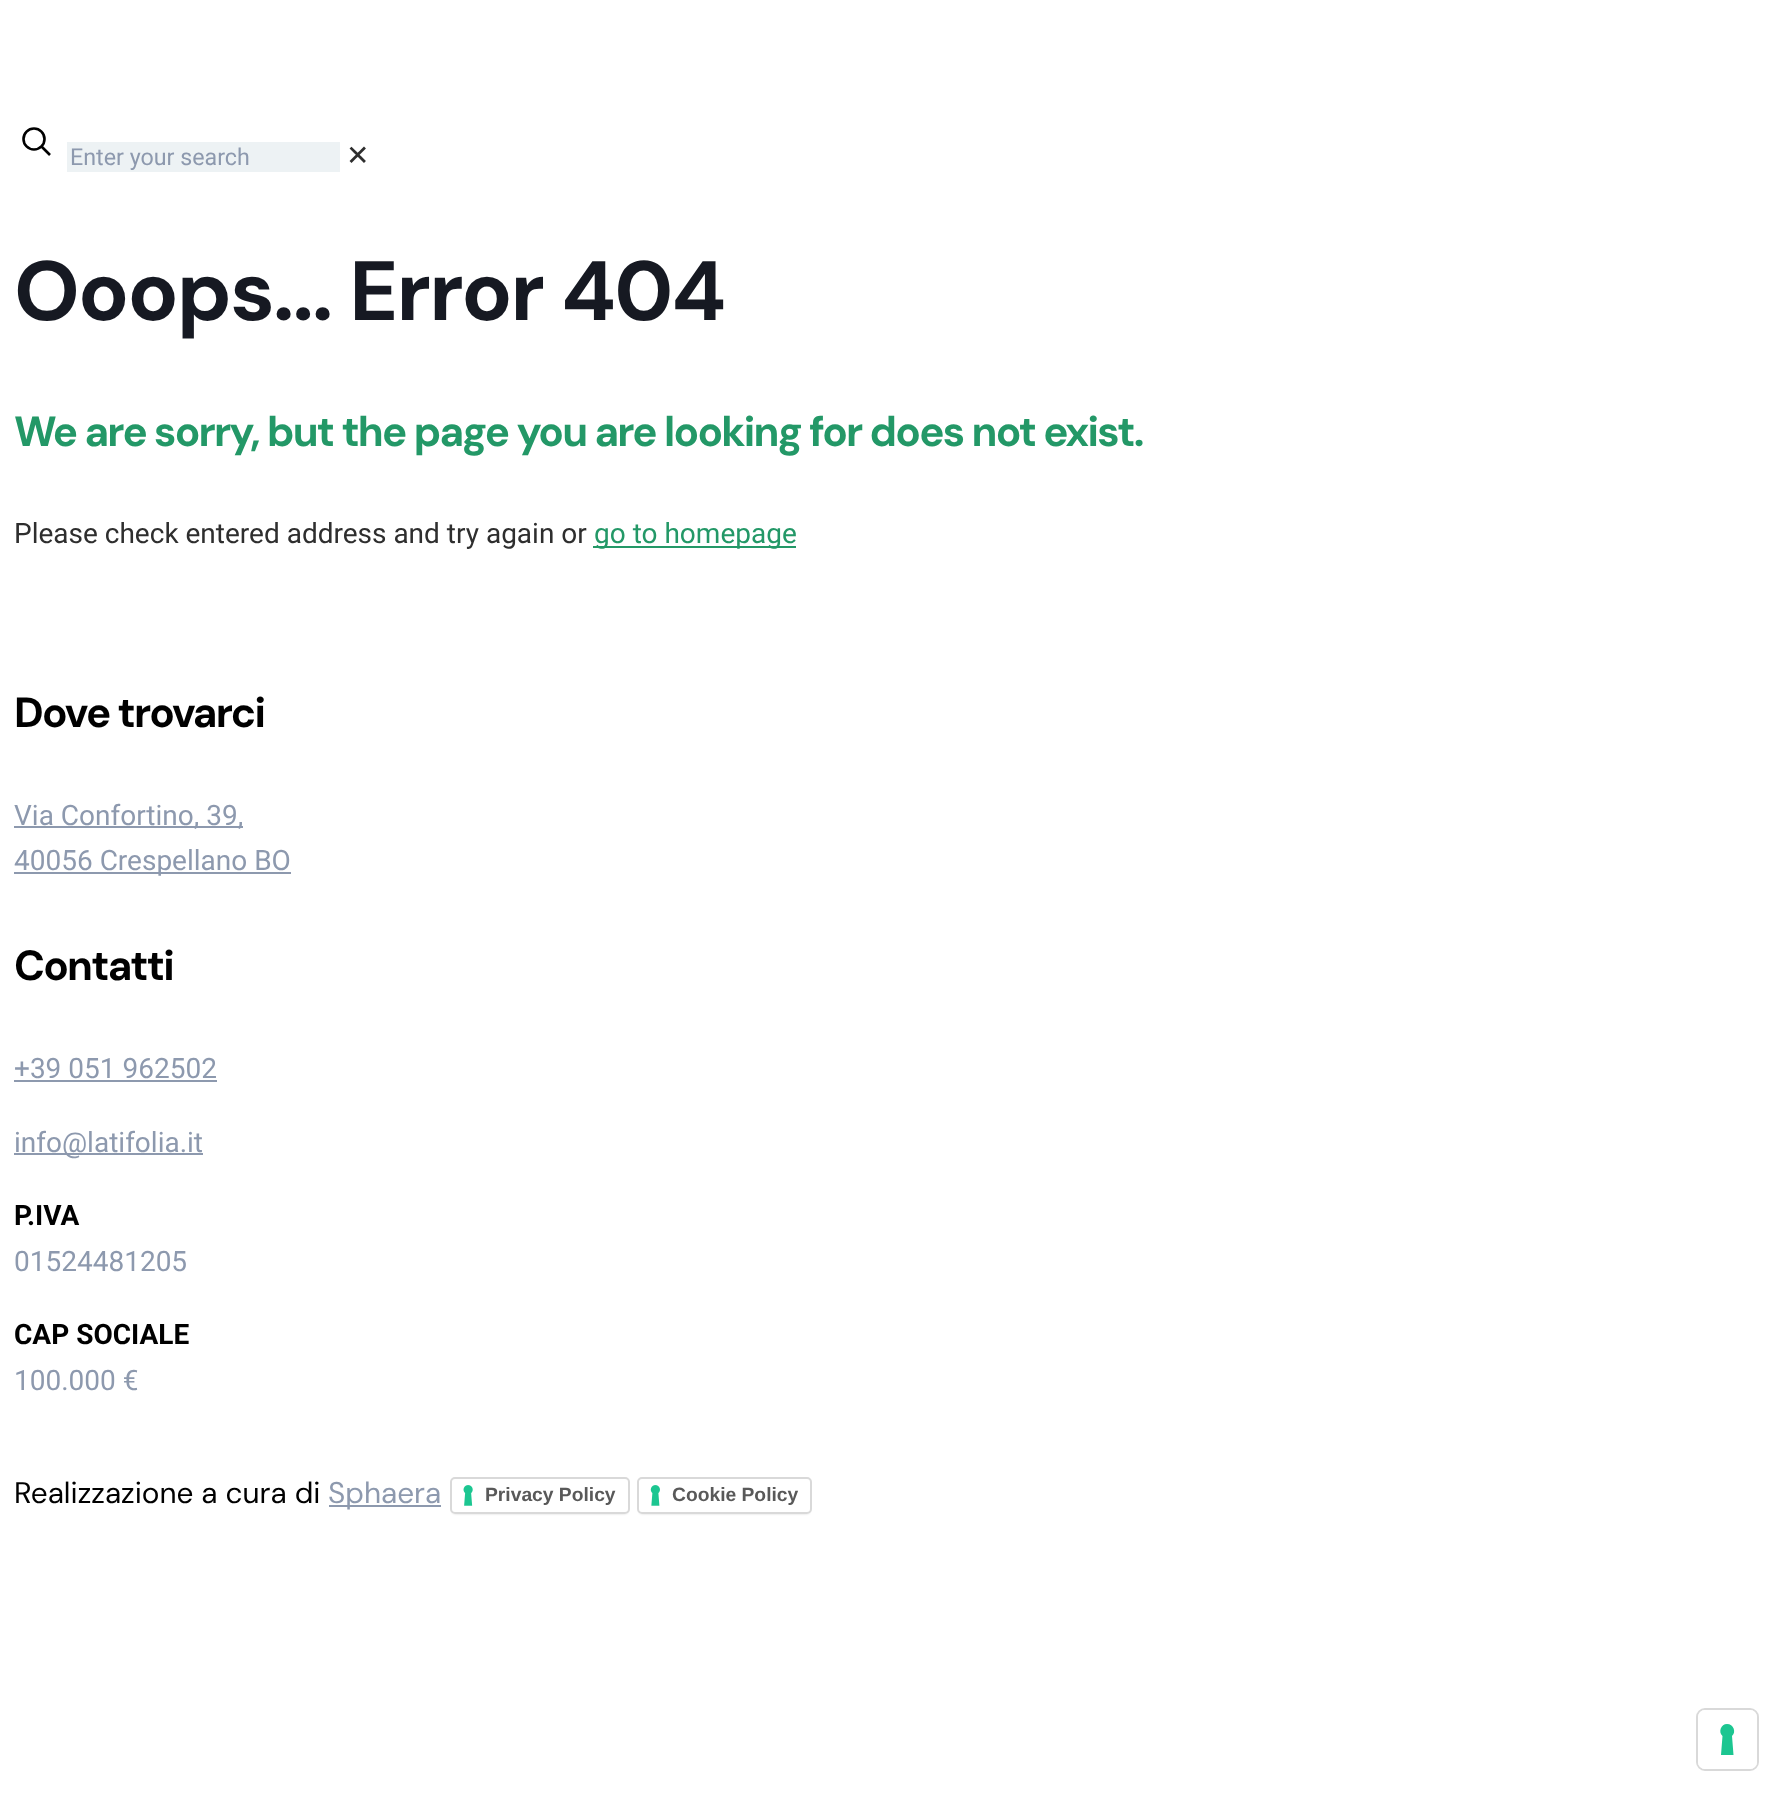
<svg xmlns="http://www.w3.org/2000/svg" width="1785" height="1796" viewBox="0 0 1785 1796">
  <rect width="100%" height="100%" fill="#fff"/>
  <circle cx="34" cy="139" r="10.5" fill="none" stroke="#000" stroke-width="2.6"/>
  <path d="M41.5 146.5L50 155" fill="none" stroke="#000" stroke-width="2.6"/>
  <path d="M67 142h273v30H67z" fill="#edf2f4"/>
  <path d="M593 546h203v2H593z" fill="#239867"/>
  <path d="M14 826h229v2H14z" fill="#8d99ae"/>
  <path d="M14 872h277v2H14z" fill="#8d99ae"/>
  <path d="M14 1080h203v2H14z" fill="#8d99ae"/>
  <path d="M14 1153h189v2H14z" fill="#8d99ae"/>
  <path d="M329 1505h112v2H329z" fill="#8d99ae"/>
  <rect x="452" y="1481" width="176" height="33" rx="4" fill="#00000026" filter="blur(1px)"/>
  <rect x="450" y="1477" width="180" height="37" rx="5" fill="#fff"/>
  <image x="463" y="1485" width="10" height="21" href="img/1.png"/>
  <rect x="451" y="1478" width="178" height="35" rx="4" fill="none" stroke="#d9d9d9" stroke-width="2"/>
  <rect x="639" y="1481" width="171" height="33" rx="4" fill="#00000026" filter="blur(1px)"/>
  <rect x="637" y="1477" width="175" height="37" rx="5" fill="#fff"/>
  <image x="650" y="1485" width="10" height="21" href="img/2.png"/>
  <rect x="638" y="1478" width="173" height="35" rx="4" fill="none" stroke="#d9d9d9" stroke-width="2"/>
  <rect x="1697" y="1709" width="61" height="61" rx="8" fill="none" stroke="#d9d9d9" stroke-width="2"/>
  <rect x="1698" y="1710" width="59" height="59" rx="7" fill="#fff"/>
  <path d="M1727 1724C1733.5 1724 1736.5 1732 1732 1736L1733.5 1755H1721L1722.5 1736C1718 1732 1721 1724 1727 1724Z" fill="#1cc691" fill-rule="evenodd"/>
  <text x="70" y="165" font-family="Roboto" font-size="23.25" fill="#8d99ae">Enter your search</text>
  <text x="346" y="165" font-family="DejaVu Sans" font-size="28" fill="#2e2e2e">✕</text>
  <text x="14" y="320" font-family="DM Sans" font-size="84" font-weight="bold" letter-spacing="-1.75" fill="#161922">Ooops... Error 404</text>
  <text x="14" y="446" font-family="DM Sans" font-size="42" font-weight="bold" letter-spacing="-1.75" fill="#239867">We are sorry, but the page you are looking for does not exist.</text>
  <text x="14" y="543" font-family="Roboto" font-size="28" fill="#2e2e2e">Please check entered address and try again or</text>
  <text x="594" y="543" font-family="Roboto" font-size="28" fill="#239867">go to homepage</text>
  <text x="14" y="727" font-family="DM Sans" font-size="42" font-weight="bold" letter-spacing="-1.75" fill="#000">Dove trovarci</text>
  <g font-family="Roboto" font-size="28" fill="#8d99ae">
    <text x="14" y="825">Via Confortino, 39,</text>
    <text x="14" y="870">40056 Crespellano BO</text>
  </g>
  <text x="14" y="980" font-family="DM Sans" font-size="42" font-weight="bold" letter-spacing="-1.75" fill="#000">Contatti</text>
  <g font-family="Roboto" font-size="28" fill="#8d99ae">
    <text x="14" y="1078">+39 051 962502</text>
    <text x="14" y="1152">info@latifolia.it</text>
  </g>
  <text x="14" y="1225" font-family="Roboto" font-size="28" font-weight="bold" fill="#000">P.IVA</text>
  <text x="14" y="1271" font-family="Roboto" font-size="28" fill="#8d99ae">01524481205</text>
  <text x="14" y="1344" font-family="Roboto" font-size="28" font-weight="bold" fill="#000">CAP SOCIALE</text>
  <text x="14" y="1390" font-family="Roboto" font-size="28" fill="#8d99ae">100.000 €</text>
  <text x="14" y="1503" font-family="DM Sans" font-size="29.75" fill="#000">Realizzazione a cura di</text>
  <text x="328" y="1503" font-family="DM Sans" font-size="29.75" fill="#8d99ae">Sphaera</text>
  <g font-family="Liberation Sans" font-size="19.25" font-weight="bold" fill="#595959">
    <text x="485" y="1501">Privacy Policy</text>
    <text x="672" y="1501">Cookie Policy</text>
  </g>
</svg>
